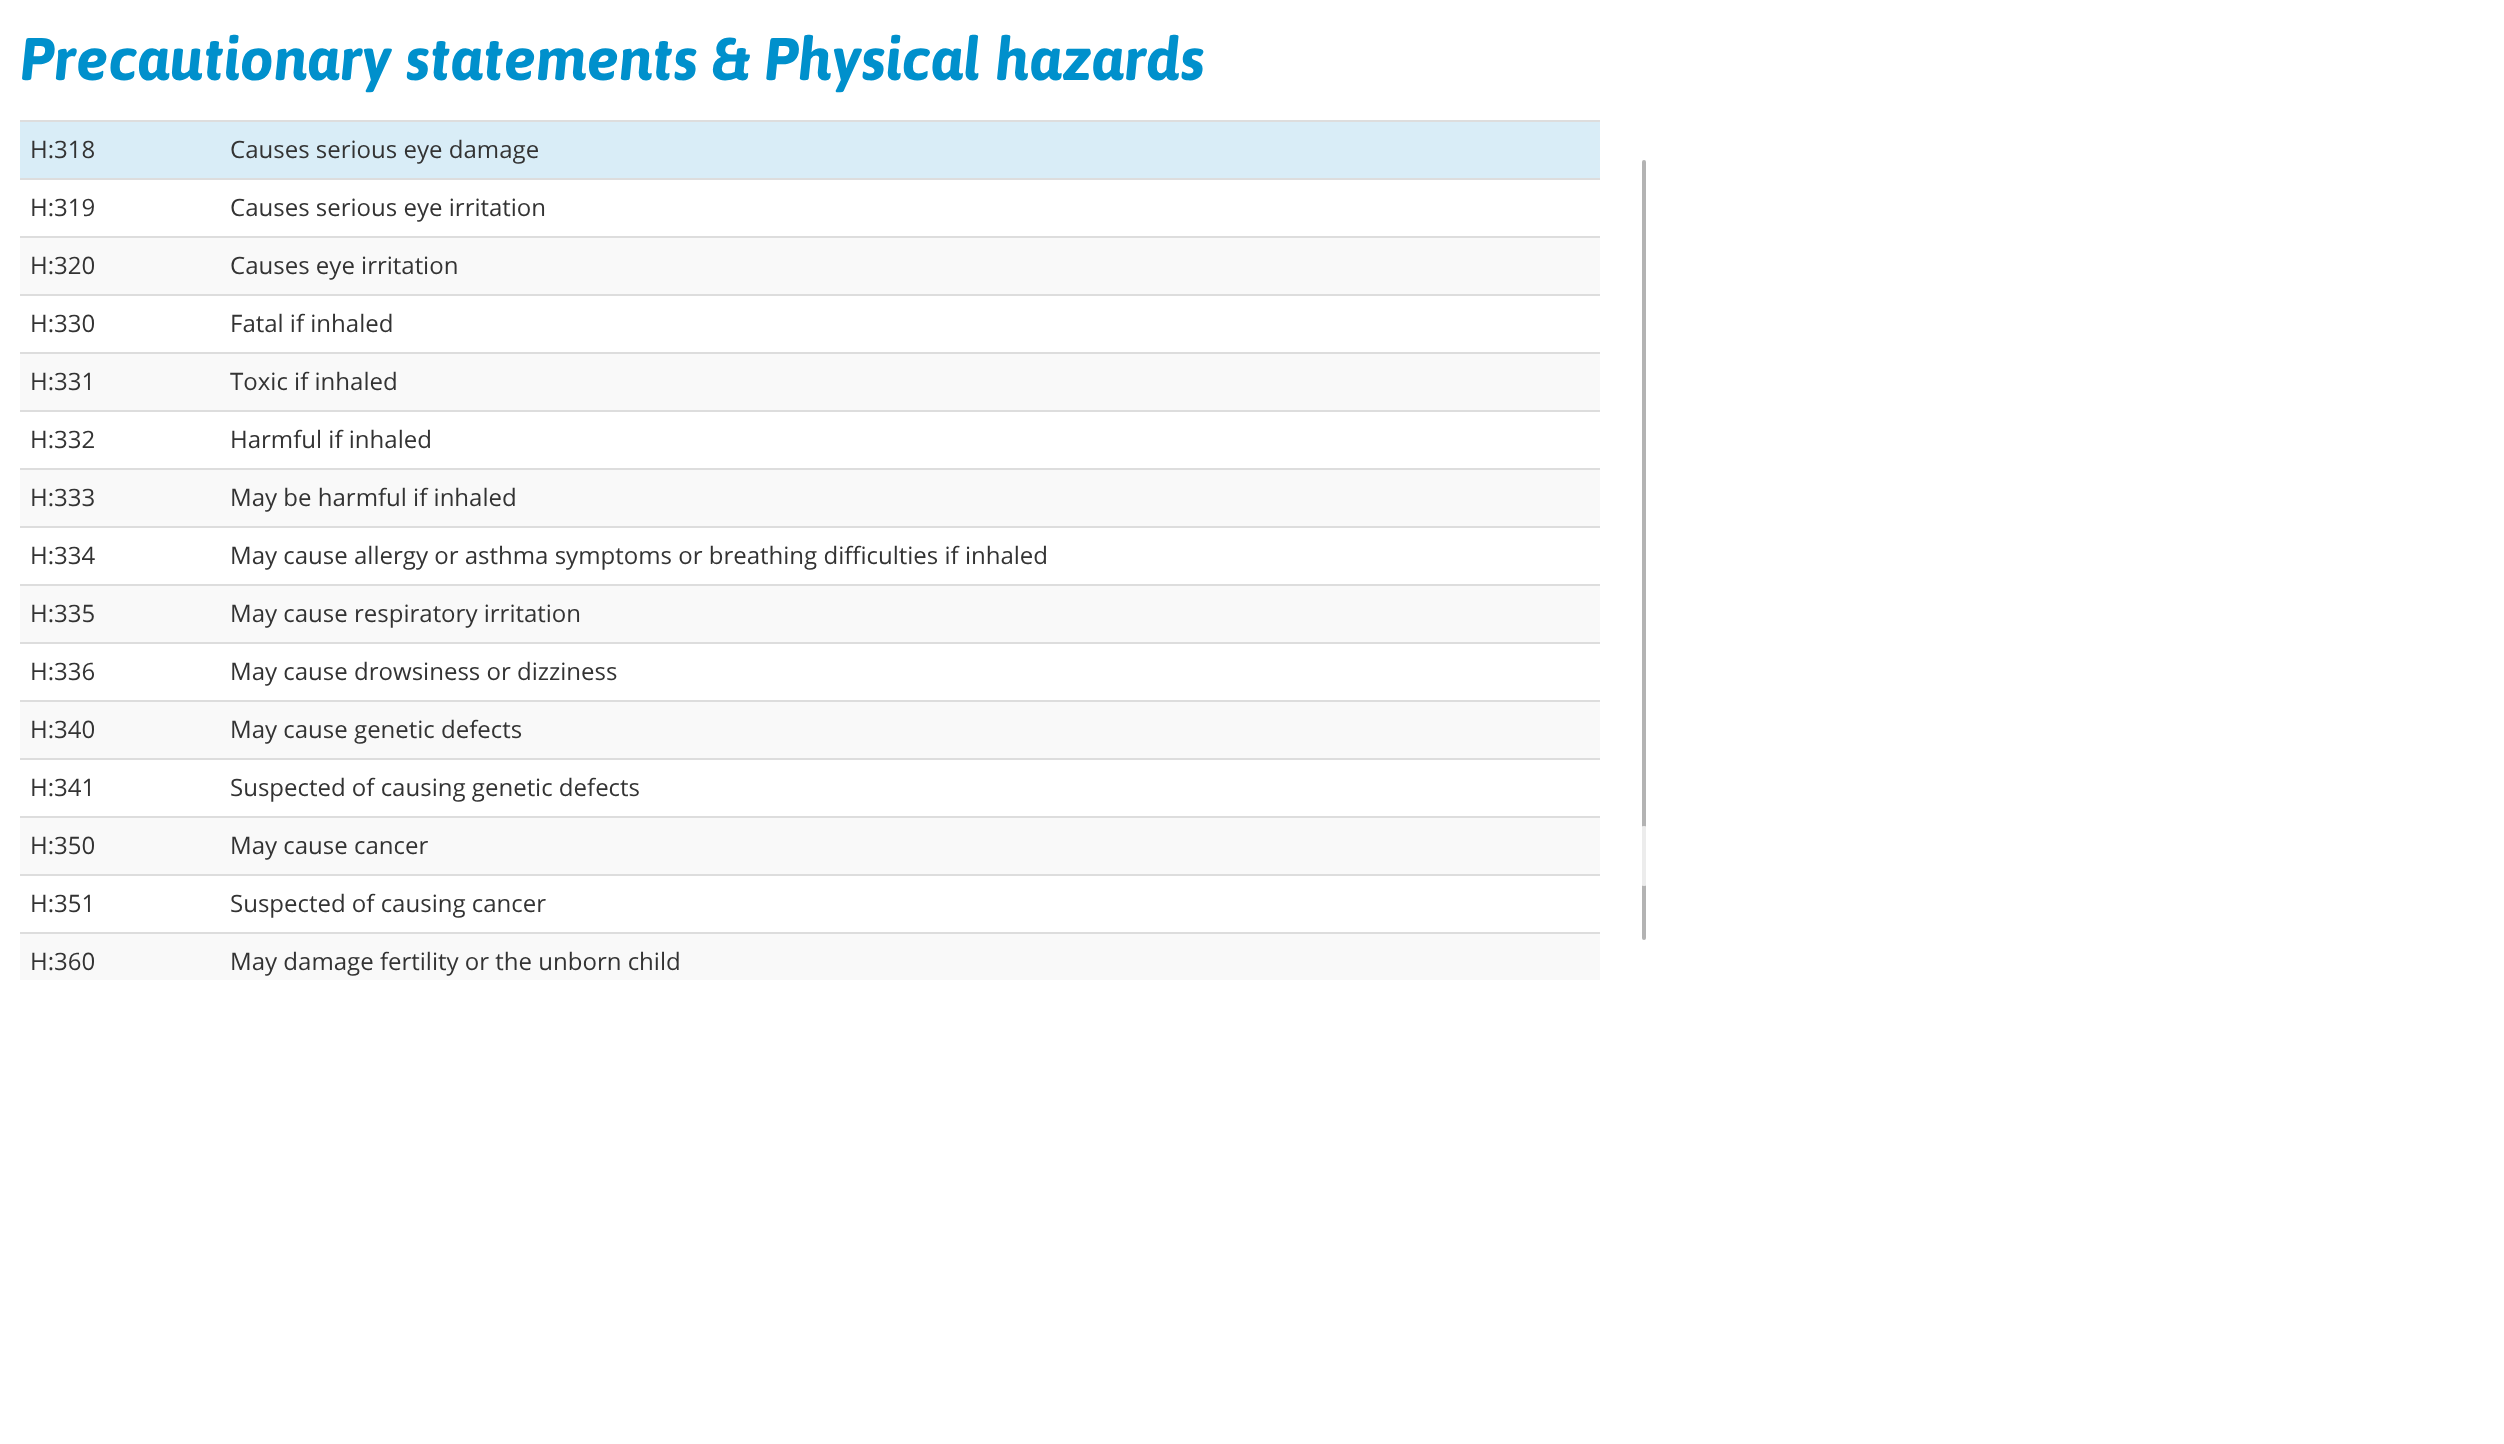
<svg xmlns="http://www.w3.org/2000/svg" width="2504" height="1444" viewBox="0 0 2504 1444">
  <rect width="100%" height="100%" fill="#fff"/>
  <path d="M20 122h1580v56H20z" fill="#d9edf7"/>
  <path d="M20 120h1580v2H20z" fill="#ddd"/>
  <path d="M20 178h1580v2H20z" fill="#ddd"/>
  <path d="M20 238h1580v56H20z" fill="#f9f9f9"/>
  <path d="M20 236h1580v2H20z" fill="#ddd"/>
  <path d="M20 294h1580v2H20z" fill="#ddd"/>
  <path d="M20 354h1580v56H20z" fill="#f9f9f9"/>
  <path d="M20 352h1580v2H20z" fill="#ddd"/>
  <path d="M20 410h1580v2H20z" fill="#ddd"/>
  <path d="M20 470h1580v56H20z" fill="#f9f9f9"/>
  <path d="M20 468h1580v2H20z" fill="#ddd"/>
  <path d="M20 526h1580v2H20z" fill="#ddd"/>
  <path d="M20 586h1580v56H20z" fill="#f9f9f9"/>
  <path d="M20 584h1580v2H20z" fill="#ddd"/>
  <path d="M20 642h1580v2H20z" fill="#ddd"/>
  <path d="M20 702h1580v56H20z" fill="#f9f9f9"/>
  <path d="M20 700h1580v2H20z" fill="#ddd"/>
  <path d="M20 758h1580v2H20z" fill="#ddd"/>
  <path d="M20 818h1580v56H20z" fill="#f9f9f9"/>
  <path d="M20 816h1580v2H20z" fill="#ddd"/>
  <path d="M20 874h1580v2H20z" fill="#ddd"/>
  <path d="M20 934h1580v46H20z" fill="#f9f9f9"/>
  <path d="M20 932h1580v2H20z" fill="#ddd"/>
  <rect x="1642" y="160" width="4" height="780" rx="2" fill="#b3b3b3"/>
  <rect x="1640" y="826" width="8" height="60" rx="4" fill="#ffffffbf"/>
  <text x="20" y="80" font-family="Asap" font-size="60" font-weight="bold" font-style="italic" fill="#0090cc">Precautionary statements &amp; Physical hazards</text>
  <g font-family="Open Sans" font-size="24" fill="#333">
    <text x="30" y="158">H:318</text>
    <text x="230" y="158">Causes serious eye damage</text>
    <text x="30" y="216">H:319</text>
    <text x="230" y="216">Causes serious eye irritation</text>
    <text x="30" y="274">H:320</text>
    <text x="230" y="274">Causes eye irritation</text>
    <text x="30" y="332">H:330</text>
    <text x="230" y="332">Fatal if inhaled</text>
    <text x="30" y="390">H:331</text>
    <text x="230" y="390">Toxic if inhaled</text>
    <text x="30" y="448">H:332</text>
    <text x="230" y="448">Harmful if inhaled</text>
    <text x="30" y="506">H:333</text>
    <text x="230" y="506">May be harmful if inhaled</text>
    <text x="30" y="564">H:334</text>
    <text x="230" y="564">May cause allergy or asthma symptoms or breathing difficulties if inhaled</text>
    <text x="30" y="622">H:335</text>
    <text x="230" y="622">May cause respiratory irritation</text>
    <text x="30" y="680">H:336</text>
    <text x="230" y="680">May cause drowsiness or dizziness</text>
    <text x="30" y="738">H:340</text>
    <text x="230" y="738">May cause genetic defects</text>
    <text x="30" y="796">H:341</text>
    <text x="230" y="796">Suspected of causing genetic defects</text>
    <text x="30" y="854">H:350</text>
    <text x="230" y="854">May cause cancer</text>
    <text x="30" y="912">H:351</text>
    <text x="230" y="912">Suspected of causing cancer</text>
    <text x="30" y="970">H:360</text>
    <text x="230" y="970">May damage fertility or the unborn child</text>
  </g>
</svg>
